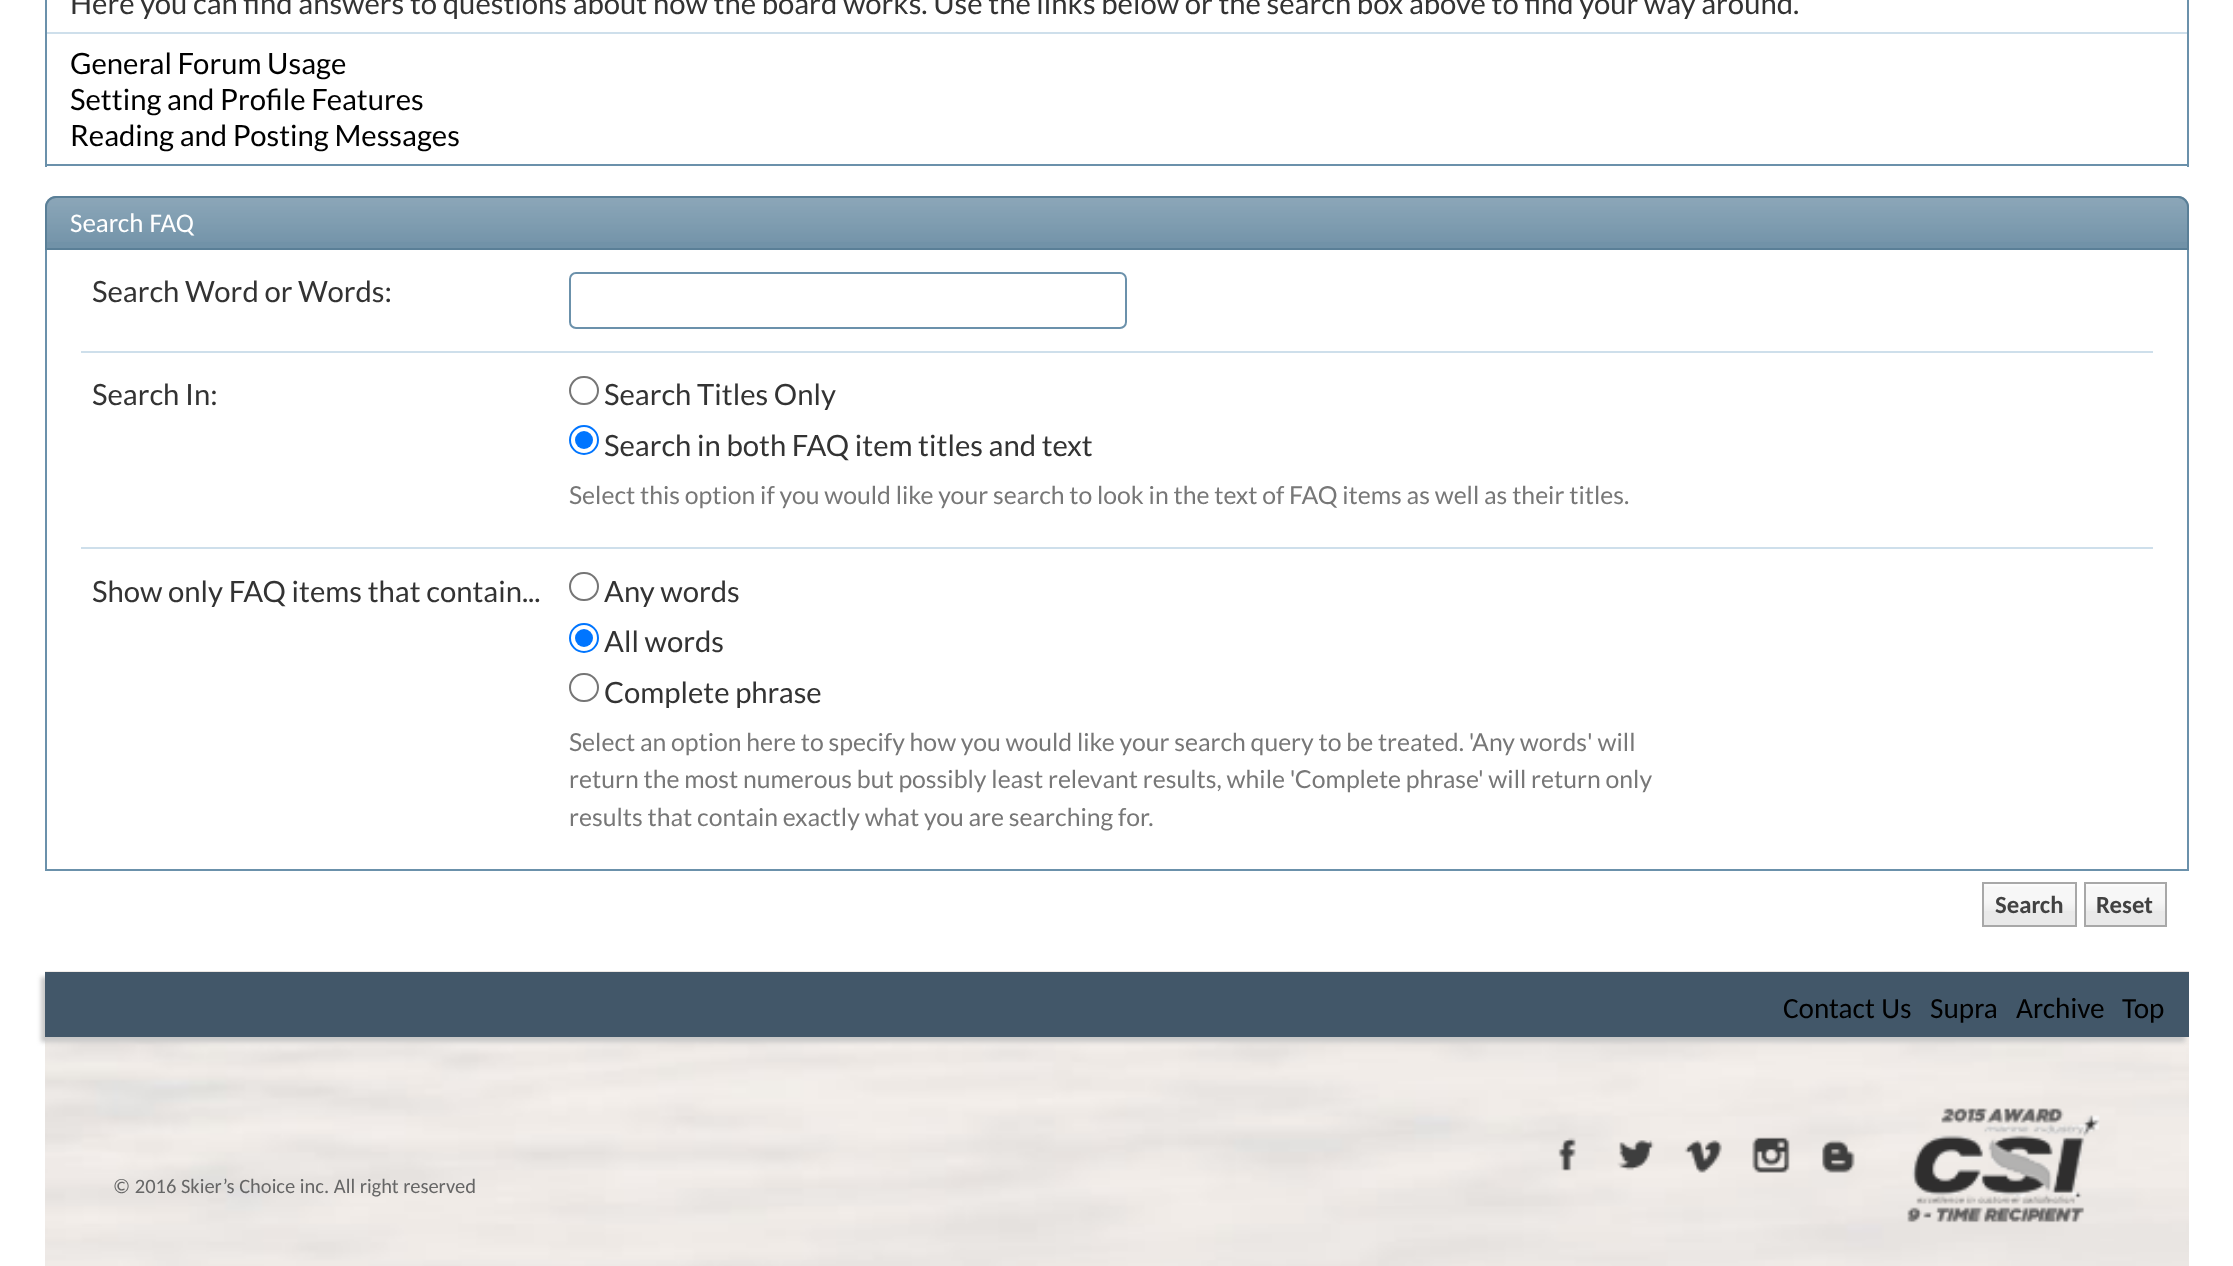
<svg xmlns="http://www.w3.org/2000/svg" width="2233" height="1266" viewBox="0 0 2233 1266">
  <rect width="100%" height="100%" fill="#fff"/>
  <path d="M2187 0h2v167H2187z" fill="#6b91ab"/>
  <path d="M45 164h2144v2H45z" fill="#6b91ab"/>
  <path d="M45 0h2v167H45z" fill="#6b91ab"/>
  <path d="M47 32h2140v2H47z" fill="#cedfeb"/>
  <path d="M56 196H2178C2184 196 2189 201 2189 207V250H45V207C45 201 50 196 56 196Z" fill="#7192a8"/>
  <image x="45" y="197" width="2144" height="45" href="img/1.png"/>
  <path d="M56 197H2178C2183.5 197 2188 201.5 2188 207V249H46V207C46 201.5 50.5 197 56 197Z" fill="none" stroke="#5a7f97" stroke-width="2"/>
  <path d="M2187 250h2v621H2187z" fill="#6b91ab"/>
  <path d="M45 869h2144v2H45z" fill="#6b91ab"/>
  <path d="M45 250h2v621H45z" fill="#6b91ab"/>
  <rect x="570" y="273" width="556" height="55" rx="6" fill="none" stroke="#6b91ab" stroke-width="2"/>
  <path d="M81 351h2072v2H81z" fill="#cedfeb"/>
  <rect x="570" y="377" width="28" height="27" rx="13.5" fill="none" stroke="#767676" stroke-width="2"/>
  <circle cx="584" cy="440" r="14" fill="none" stroke="#0075ff" stroke-width="2"/>
  <circle cx="584" cy="440" r="9" fill="#0075ff"/>
  <path d="M81 547h2072v2H81z" fill="#cedfeb"/>
  <rect x="570" y="573" width="28" height="27" rx="13.5" fill="none" stroke="#767676" stroke-width="2"/>
  <circle cx="584" cy="638" r="14" fill="none" stroke="#0075ff" stroke-width="2"/>
  <circle cx="584" cy="638" r="9" fill="#0075ff"/>
  <rect x="570" y="674" width="28" height="27" rx="13.5" fill="none" stroke="#767676" stroke-width="2"/>
  <path d="M1984 884h91v41H1984z" fill="#e9e9e9"/>
  <image x="1984" y="884" width="91" height="27" href="img/2.png"/>
  <path d="M1983 883h93v43H1983z" fill="none" stroke="#a8a8a8" stroke-width="2"/>
  <path d="M2086 884h79v41H2086z" fill="#e9e9e9"/>
  <image x="2086" y="884" width="79" height="27" href="img/3.png"/>
  <path d="M2085 883h81v43H2085z" fill="none" stroke="#a8a8a8" stroke-width="2"/>
  <image x="45" y="971" width="2144" height="295" href="img/4.png"/>
  <path d="M41 977h2144v65H41z" fill="#c8c8c8" filter="blur(2px)"/>
  <path d="M45 972h2144v65H45z" fill="#425769"/>
  <image x="1558" y="1137" width="18" height="34" href="img/5.png"/>
  <image x="1617" y="1140" width="38" height="31" href="img/6.png"/>
  <image x="1684" y="1140" width="38" height="33" href="img/7.png"/>
  <image x="1752" y="1137" width="38" height="36" href="img/8.png"/>
  <image x="1822" y="1140" width="33" height="33" href="img/9.png"/>
  <image x="1907" y="1108" width="193" height="115" href="img/10.png"/>
  <text x="70" y="14" font-family="Lato" font-size="29.25" fill="#333">Here you can find answers to questions about how the board works. Use the links below or the search box above to find your way around.</text>
  <g font-family="Lato" font-size="29.25" fill="#000">
    <text x="70" y="74">General Forum Usage</text>
    <text x="70" y="110">Setting and Profile Features</text>
    <text x="70" y="146">Reading and Posting Messages</text>
  </g>
  <text x="70" y="232" font-family="Carlito" font-size="27" fill="#fff">Search FAQ</text>
  <g font-family="Lato" font-size="29.25" fill="#333">
    <text x="92" y="302">Search Word or Words:</text>
    <text x="92" y="405">Search In:</text>
    <text x="604" y="405">Search Titles Only</text>
    <text x="604" y="456">Search in both FAQ item titles and text</text>
  </g>
  <text x="569" y="504" font-family="Lato" font-size="24.75" fill="#777">Select this option if you would like your search to look in the text of FAQ items as well as their titles.</text>
  <g font-family="Lato" font-size="29.25" fill="#333">
    <text x="92" y="602">Show only FAQ items that contain...</text>
    <text x="604" y="602">Any words</text>
    <text x="604" y="652">All words</text>
    <text x="604" y="703">Complete phrase</text>
  </g>
  <g font-family="Lato" font-size="24.75" fill="#777">
    <text x="569" y="751">Select an option here to specify how you would like your search query to be treated. 'Any words' will</text>
    <text x="569" y="788">return the most numerous but possibly least relevant results, while 'Complete phrase' will return only</text>
    <text x="569" y="826">results that contain exactly what you are searching for.</text>
  </g>
  <g font-family="Carlito" font-size="24.75" font-weight="bold" fill="#424242">
    <text x="1995" y="913">Search</text>
    <text x="2096" y="913">Reset</text>
  </g>
  <g font-family="Carlito" font-size="29.25" fill="#000">
    <text x="1783" y="1018">Contact Us</text>
    <text x="1930" y="1018">Supra</text>
    <text x="2016" y="1018">Archive</text>
    <text x="2122" y="1018">Top</text>
  </g>
  <text x="113" y="1193" font-family="Carlito" font-size="20.5" fill="#666">© 2016 Skier’s Choice inc. All right reserved</text>
</svg>
